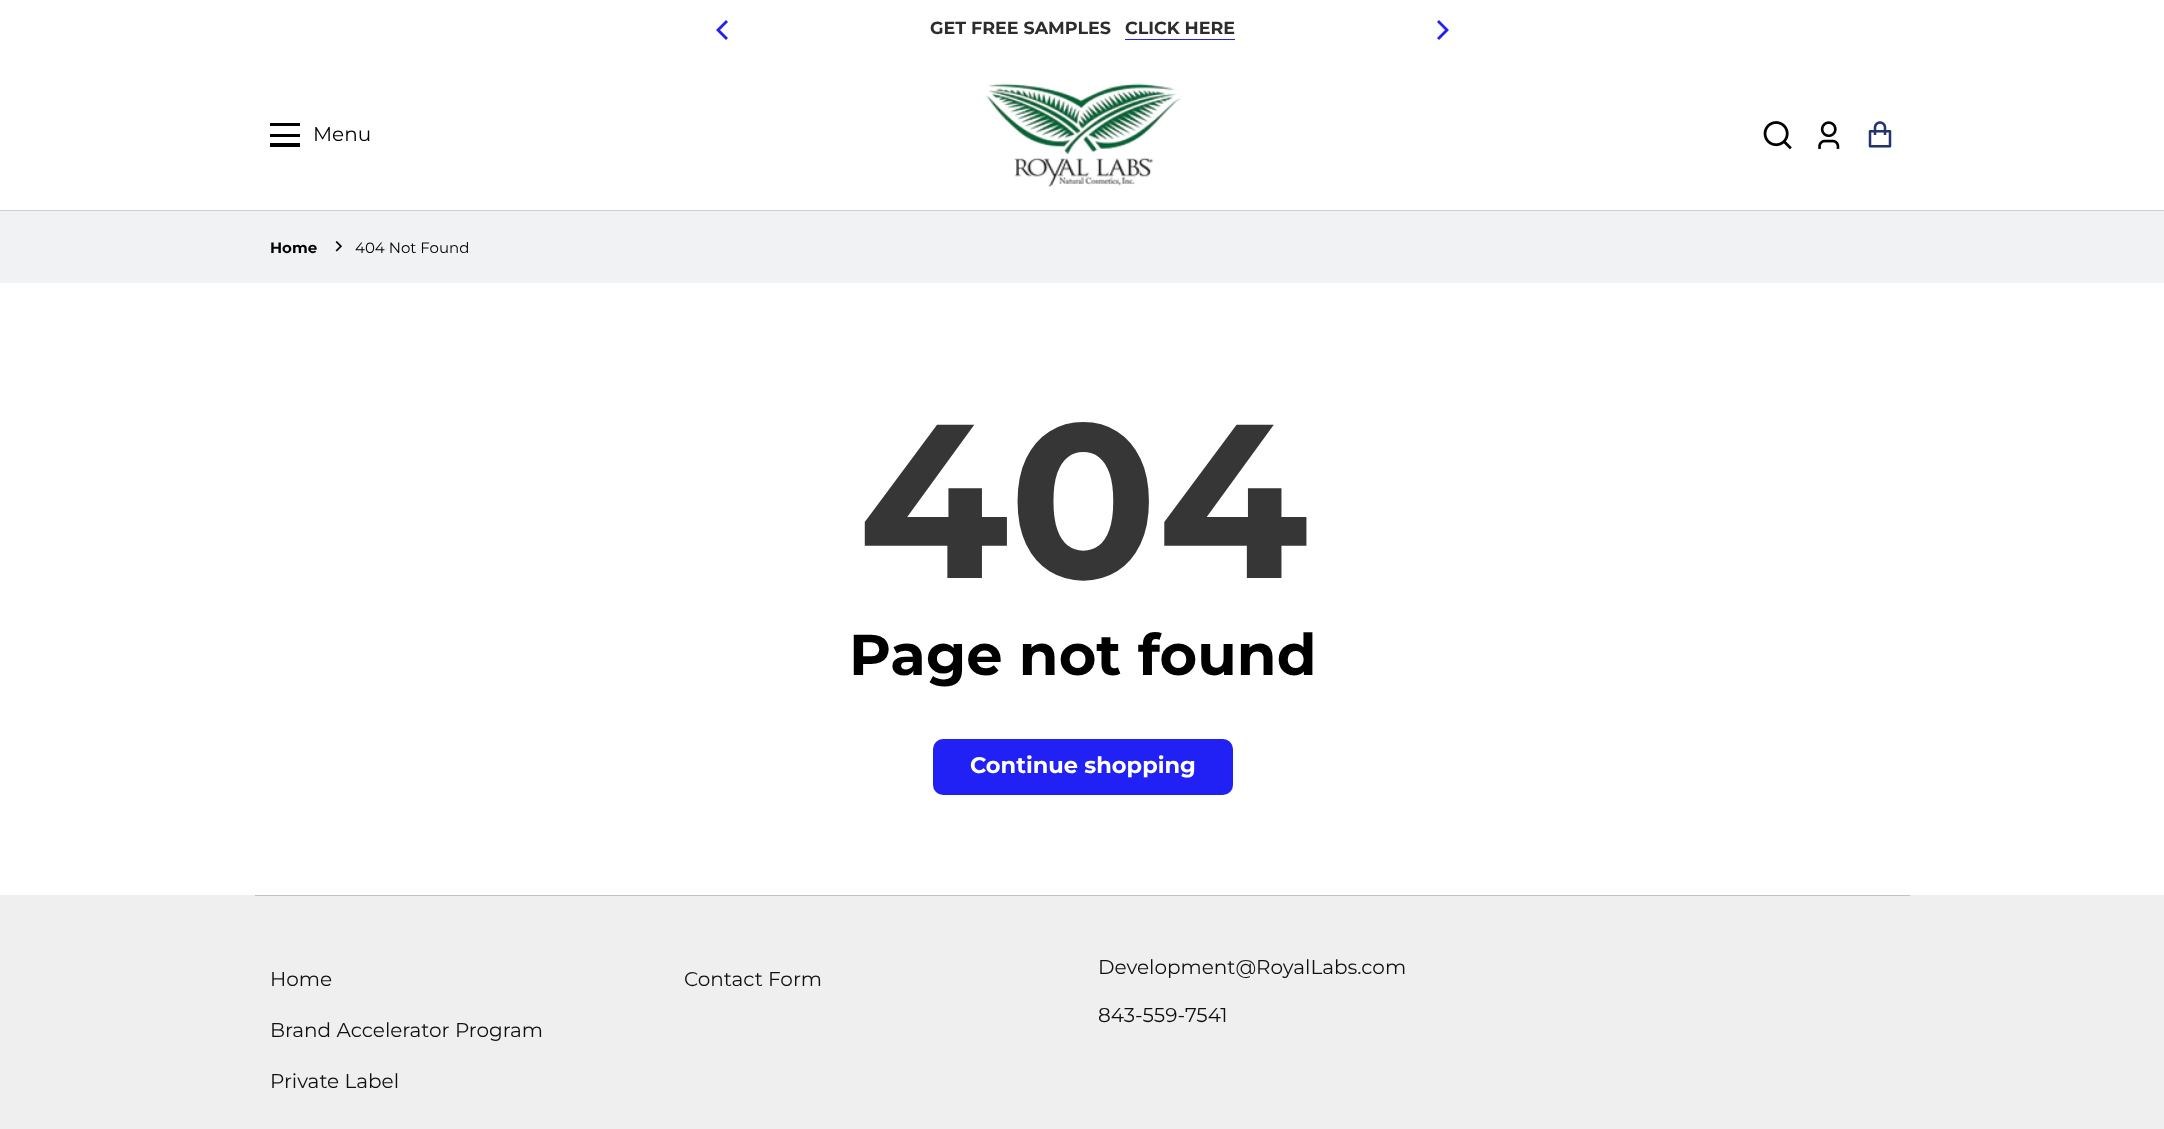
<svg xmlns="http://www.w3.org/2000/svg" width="2164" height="1129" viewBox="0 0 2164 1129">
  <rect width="100%" height="100%" fill="#fff"/>
  <path d="M716 30L726 40L728 38L720 30L728 22L726 20Z" fill="#2121f5"/>
  <path d="M1125 39h110v1H1125z" fill="#2121f5"/>
  <path d="M1449 30L1439 20L1437 22L1445 30L1437 38L1439 40Z" fill="#2121f5"/>
  <path d="M0 210h2164v1H0z" fill="#cecece"/>
  <path d="M270 143h30v4H270z" fill="#000"/>
  <path d="M270 134h30v3H270z" fill="#000"/>
  <path d="M270 123h30v3H270z" fill="#000"/>
  <image x="986" y="83" width="196" height="104" href="img/1.png"/>
  <image x="1763" y="121" width="29" height="29" href="img/2.png"/>
  <image x="1818" y="121" width="22" height="28" href="img/3.png"/>
  <image x="1868" y="121" width="24" height="27" href="img/4.png"/>
  <path d="M0 211h2164v72H0z" fill="#f1f2f4"/>
  <image x="335" y="241" width="7" height="11" href="img/5.png"/>
  <rect x="933" y="739" width="300" height="56" rx="10" fill="#2121f5"/>
  <path d="M0 895h2164v234H0z" fill="#efefef"/>
  <path d="M255 895h1655v1H255z" fill="#c1c1c1"/>
  <g font-family="Montserrat" font-size="17.5" font-weight="bold" fill="#2d2d2d">
    <text x="930" y="34">GET FREE SAMPLES</text>
    <text x="1125" y="34">CLICK HERE</text>
  </g>
  <text x="313" y="141" font-family="Montserrat" font-size="20" fill="#000">Menu</text>
  <text x="270" y="253" font-family="Montserrat" font-size="15" font-weight="bold" fill="#000">Home</text>
  <text x="355" y="253" font-family="Montserrat" font-size="15" fill="#000">404 Not Found</text>
  <text x="858" y="578" font-family="Montserrat" font-size="219" font-weight="bold" fill="#363636">404</text>
  <text x="849" y="675" font-family="Montserrat" font-size="57.5" font-weight="bold" fill="#000">Page not found</text>
  <text x="970" y="773" font-family="Montserrat" font-size="22.5" font-weight="bold" fill="#fff">Continue shopping</text>
  <g font-family="Montserrat" font-size="20" fill="#111">
    <text x="270" y="986">Home</text>
    <text x="270" y="1037">Brand Accelerator Program</text>
    <text x="270" y="1088">Private Label</text>
    <text x="684" y="986">Contact Form</text>
    <text x="1098" y="974">Development@RoyalLabs.com</text>
    <text x="1098" y="1022">843-559-7541</text>
  </g>
</svg>
